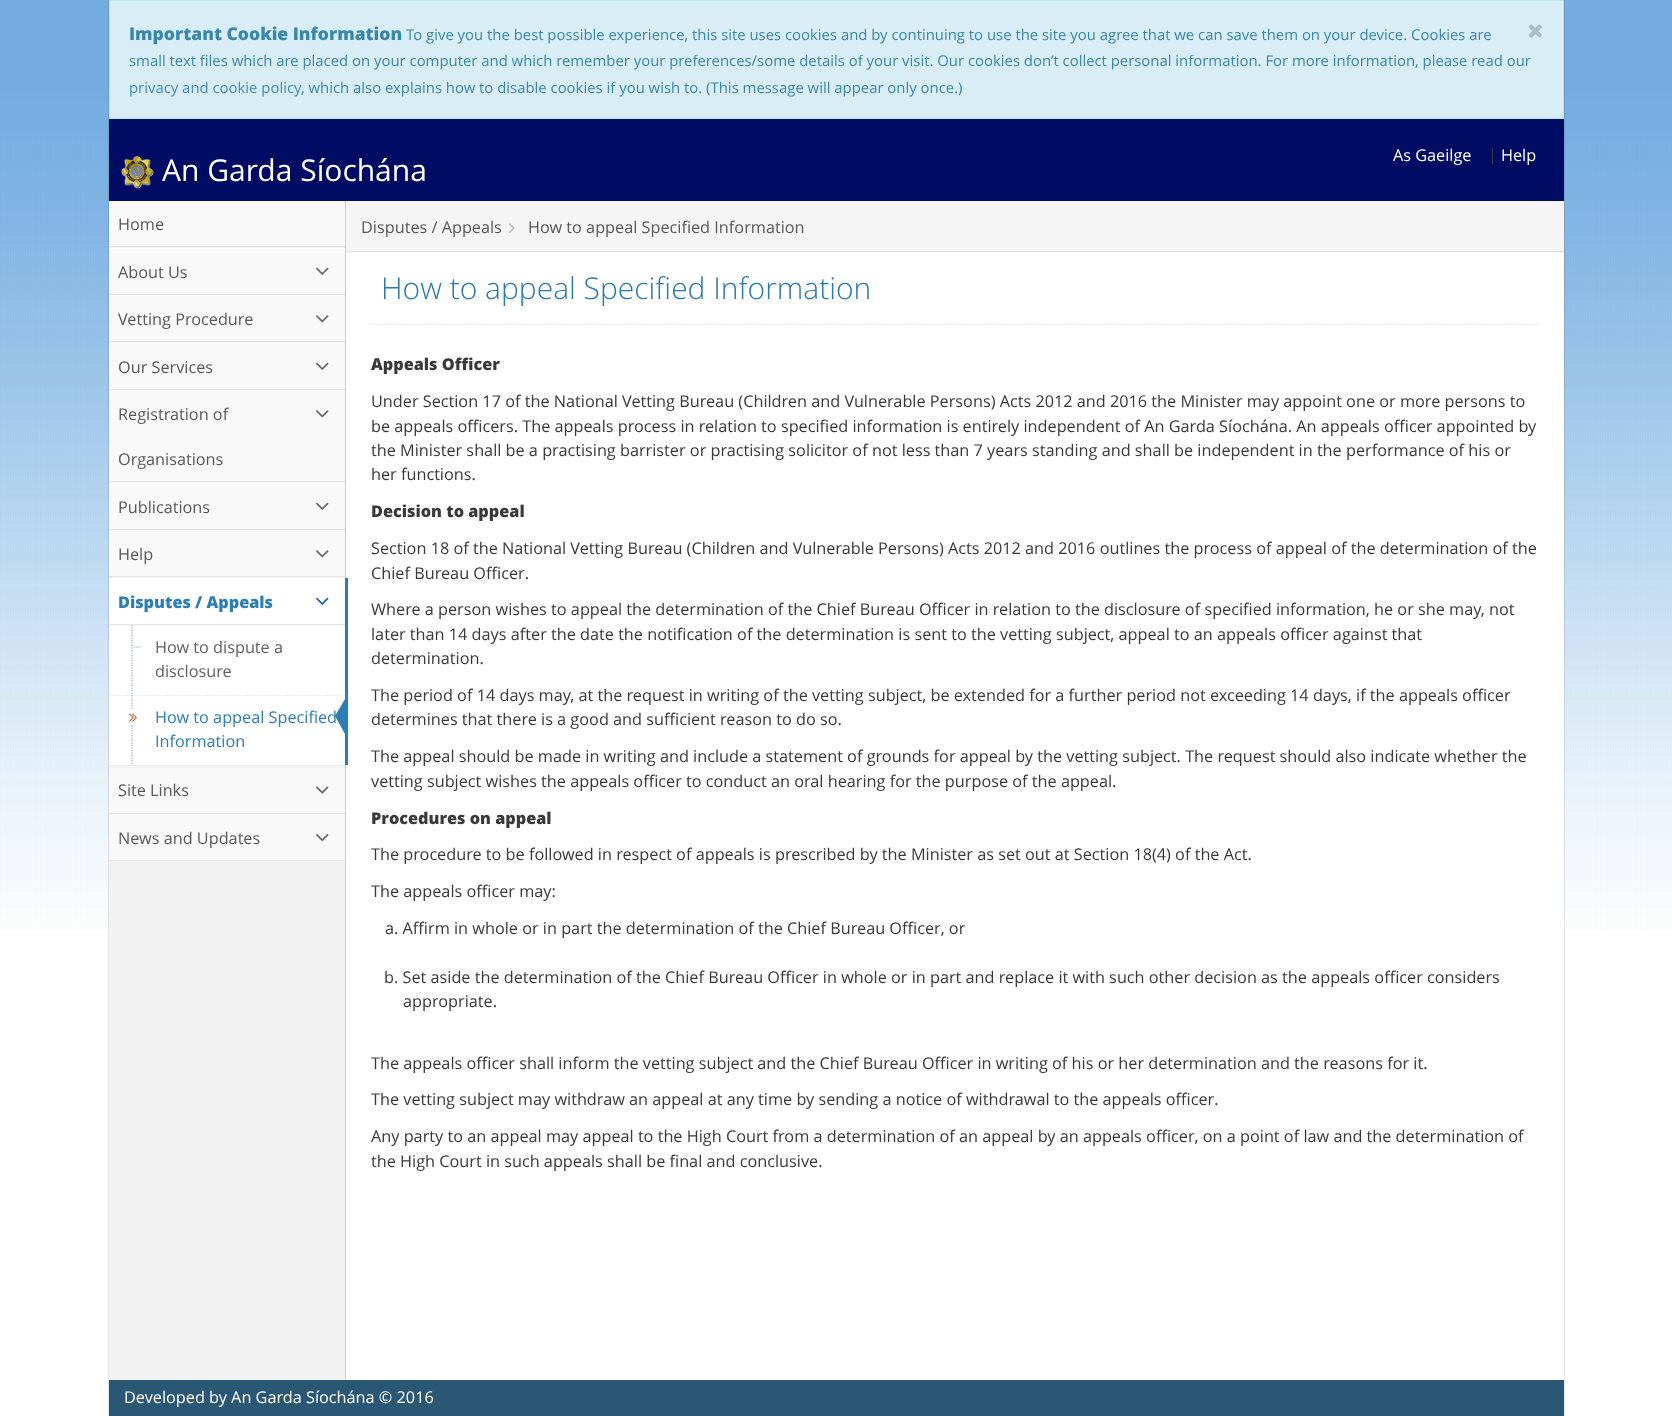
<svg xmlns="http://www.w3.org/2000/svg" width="1672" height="1416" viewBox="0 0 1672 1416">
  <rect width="100%" height="100%" fill="#fff"/>
  <image x="0" y="0" width="1672" height="930" href="img/1.png"/>
  <path d="M108.5 -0.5h1456v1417H108.5z" fill="none" stroke="#0000001a"/>
  <path d="M346 253h1218v677H346z" fill="#fff"/>
  <path d="M109 119h1455v82H109z" fill="#000c63"/>
  <path d="M109.5 0.5h1454v118H109.5z" fill="#d9edf7" stroke="#bce8f1"/>
  <image x="1528" y="24" width="14" height="14" href="img/2.png"/>
  <image x="121" y="156" width="33" height="33" href="img/3.png"/>
  <path d="M109 247h236v1133H109z" fill="#f2f2f2"/>
  <path d="M345 201h1v1179H345z" fill="#ccc"/>
  <path d="M109 246h236v1H109z" fill="#e5e5e5"/>
  <path d="M109 201h236v45H109z" fill="#f9f9f9"/>
  <path d="M109 248h236v1H109z" fill="#fcfcfc"/>
  <path d="M109 294h236v1H109z" fill="#e5e5e5"/>
  <path d="M109 249h236v45H109z" fill="#f9f9f9"/>
  <image x="316" y="267" width="13" height="8" href="img/4.png"/>
  <path d="M109 295h236v1H109z" fill="#fcfcfc"/>
  <path d="M109 341h236v1H109z" fill="#e5e5e5"/>
  <path d="M109 296h236v45H109z" fill="#f9f9f9"/>
  <image x="316" y="315" width="13" height="8" href="img/5.png"/>
  <path d="M109 343h236v1H109z" fill="#fcfcfc"/>
  <path d="M109 389h236v1H109z" fill="#e5e5e5"/>
  <path d="M109 344h236v45H109z" fill="#f9f9f9"/>
  <image x="316" y="362" width="13" height="8" href="img/4.png"/>
  <path d="M109 390h236v1H109z" fill="#fcfcfc"/>
  <path d="M109 481h236v1H109z" fill="#e5e5e5"/>
  <path d="M109 391h236v90H109z" fill="#f9f9f9"/>
  <image x="316" y="410" width="13" height="8" href="img/5.png"/>
  <path d="M109 483h236v1H109z" fill="#fcfcfc"/>
  <path d="M109 529h236v1H109z" fill="#e5e5e5"/>
  <path d="M109 484h236v45H109z" fill="#f9f9f9"/>
  <image x="316" y="502" width="13" height="8" href="img/4.png"/>
  <path d="M109 530h236v1H109z" fill="#fcfcfc"/>
  <path d="M109 576h236v1H109z" fill="#e5e5e5"/>
  <path d="M109 531h236v45H109z" fill="#f9f9f9"/>
  <image x="316" y="550" width="13" height="8" href="img/5.png"/>
  <path d="M109 579h236v186H109z" fill="#fff"/>
  <path d="M109 578h236v1H109z" fill="#fcfcfc"/>
  <path d="M109 765h236v1H109z" fill="#e5e5e5"/>
  <image x="316" y="597" width="13" height="8" href="img/6.png"/>
  <path d="M345 578h3v187H345z" fill="#2b7dbc"/>
  <path d="M109 624h236v1H109z" fill="#e5e5e5"/>
  <path d="M109 625h236v1H109z" fill="#fafafa"/>
  <path d="M109 695.5H345" fill="none" stroke="#e4e4e4" stroke-width="1.2" stroke-dasharray="1.25 1.25"/>
  <path d="M132 625V765" fill="none" stroke="#8eb3d0" stroke-width="1.2" stroke-dasharray="1.25 1.25"/>
  <path d="M134 647H135M136 647H137.5M138.5 647H140M141.5 647H142.5" fill="none" stroke="#8eb3d0" stroke-width="1.2"/>
  <path d="M131 710h2v14H131z" fill="#fff"/>
  <image x="128" y="713" width="9" height="9" href="img/7.png"/>
  <path d="M345 699V734L335 716Z" fill="#2b7dbc"/>
  <path d="M109 766h236v1H109z" fill="#fcfcfc"/>
  <path d="M109 813h236v1H109z" fill="#e5e5e5"/>
  <path d="M109 768h236v45H109z" fill="#f9f9f9"/>
  <image x="316" y="786" width="13" height="8" href="img/8.png"/>
  <path d="M109 814h236v1H109z" fill="#fcfcfc"/>
  <path d="M109 860h236v1H109z" fill="#e5e5e5"/>
  <path d="M109 815h236v45H109z" fill="#f9f9f9"/>
  <image x="316" y="834" width="13" height="8" href="img/9.png"/>
  <path d="M346 201h1218v52H346z" fill="#f5f5f5"/>
  <path d="M346 251h1218v1H346z" fill="#e5e5e5"/>
  <image x="509" y="223" width="6" height="10" href="img/10.png"/>
  <path d="M371 324.5H1539" fill="none" stroke="#e2e2e2" stroke-width="1.2" stroke-dasharray="1.25 1.25"/>
  <path d="M109 1380h1455v36H109z" fill="#2a5773"/>
  <text x="129" y="40" font-family="Open Sans" font-size="17.5" font-weight="800" fill="#3a87ad">Important Cookie Information</text>
  <g font-family="Open Sans" font-size="14.88" fill="#3a87ad">
    <text x="406" y="40">To give you the best possible experience, this site uses cookies and by continuing to use the site you agree that we can save them on your device. Cookies are</text>
    <text x="129" y="66">small text files which are placed on your computer and which remember your preferences/some details of your visit. Our cookies don’t collect personal information. For more information, please read our</text>
  </g>
  <text x="129" y="93" font-family="Open Sans" font-size="14.88" fill="#428bca">privacy and cookie policy</text>
  <text x="301" y="93" font-family="Open Sans" font-size="14.88" fill="#3a87ad">, which also explains how to disable cookies if you wish to. (This message will appear only once.)</text>
  <text x="162" y="181" font-family="Open Sans" font-size="30" fill="#fff">An Garda Síochána</text>
  <text x="1393" y="161" font-family="Open Sans" font-size="16.25" fill="#fff">As Gaeilge</text>
  <text x="1488" y="161" font-family="Open Sans" font-size="16.25" fill="#393939">|</text>
  <text x="1501" y="161" font-family="Open Sans" font-size="16.25" fill="#fff">Help</text>
  <g font-family="Open Sans" font-size="16.25" fill="#585858">
    <text x="118" y="230">Home</text>
    <text x="118" y="278">About Us</text>
    <text x="118" y="325">Vetting Procedure</text>
    <text x="118" y="373">Our Services</text>
    <text x="118" y="420">Registration of</text>
    <text x="118" y="465">Organisations</text>
    <text x="118" y="513">Publications</text>
    <text x="118" y="560">Help</text>
  </g>
  <text x="118" y="608" font-family="Open Sans" font-size="16.25" font-weight="800" fill="#2b7dbc">Disputes / Appeals</text>
  <g font-family="Open Sans" font-size="16.25" fill="#616161">
    <text x="155" y="653">How to dispute a</text>
    <text x="155" y="677">disclosure</text>
  </g>
  <g font-family="Open Sans" font-size="16.25" fill="#2b7dbc">
    <text x="155" y="723">How to appeal Specified</text>
    <text x="155" y="747">Information</text>
  </g>
  <g font-family="Open Sans" font-size="16.25" fill="#585858">
    <text x="118" y="796">Site Links</text>
    <text x="118" y="844">News and Updates</text>
    <text x="361" y="233">Disputes / Appeals</text>
    <text x="528" y="233">How to appeal Specified Information</text>
  </g>
  <text x="381" y="299" font-family="Open Sans" font-size="30" font-weight="300" fill="#2679b5">How to appeal Specified Information</text>
  <text x="371" y="370" font-family="Open Sans" font-size="16.25" font-weight="800" fill="#393939">Appeals Officer</text>
  <g font-family="Open Sans" font-size="16.25" fill="#393939">
    <text x="371" y="407">Under Section 17 of the National Vetting Bureau (Children and Vulnerable Persons) Acts 2012 and 2016 the Minister may appoint one or more persons to</text>
    <text x="371" y="432">be appeals officers. The appeals process in relation to specified information is entirely independent of An Garda Síochána. An appeals officer appointed by</text>
    <text x="371" y="456">the Minister shall be a practising barrister or practising solicitor of not less than 7 years standing and shall be independent in the performance of his or</text>
    <text x="371" y="480">her functions.</text>
  </g>
  <text x="371" y="517" font-family="Open Sans" font-size="16.25" font-weight="800" fill="#393939">Decision to appeal</text>
  <g font-family="Open Sans" font-size="16.25" fill="#393939">
    <text x="371" y="554">Section 18 of the National Vetting Bureau (Children and Vulnerable Persons) Acts 2012 and 2016 outlines the process of appeal of the determination of the</text>
    <text x="371" y="579">Chief Bureau Officer.</text>
    <text x="371" y="615">Where a person wishes to appeal the determination of the Chief Bureau Officer in relation to the disclosure of specified information, he or she may, not</text>
    <text x="371" y="640">later than 14 days after the date the notification of the determination is sent to the vetting subject, appeal to an appeals officer against that</text>
    <text x="371" y="664">determination.</text>
    <text x="371" y="701">The period of 14 days may, at the request in writing of the vetting subject, be extended for a further period not exceeding 14 days, if the appeals officer</text>
    <text x="371" y="725">determines that there is a good and sufficient reason to do so.</text>
    <text x="371" y="762">The appeal should be made in writing and include a statement of grounds for appeal by the vetting subject. The request should also indicate whether the</text>
    <text x="371" y="787">vetting subject wishes the appeals officer to conduct an oral hearing for the purpose of the appeal.</text>
  </g>
  <text x="371" y="824" font-family="Open Sans" font-size="16.25" font-weight="800" fill="#393939">Procedures on appeal</text>
  <g font-family="Open Sans" font-size="16.25" fill="#393939">
    <text x="371" y="860">The procedure to be followed in respect of appeals is prescribed by the Minister as set out at Section 18(4) of the Act.</text>
    <text x="371" y="897">The appeals officer may:</text>
    <text x="385" y="934">a. Affirm in whole or in part the determination of the Chief Bureau Officer, or</text>
    <text x="384" y="983">b. Set aside the determination of the Chief Bureau Officer in whole or in part and replace it with such other decision as the appeals officer considers</text>
    <text x="403" y="1007">appropriate.</text>
    <text x="371" y="1069">The appeals officer shall inform the vetting subject and the Chief Bureau Officer in writing of his or her determination and the reasons for it.</text>
    <text x="371" y="1105">The vetting subject may withdraw an appeal at any time by sending a notice of withdrawal to the appeals officer.</text>
    <text x="371" y="1142">Any party to an appeal may appeal to the High Court from a determination of an appeal by an appeals officer, on a point of law and the determination of</text>
    <text x="371" y="1167">the High Court in such appeals shall be final and conclusive.</text>
  </g>
  <text x="124" y="1403" font-family="Open Sans" font-size="16.25" fill="#fff">Developed by An Garda Síochána © 2016</text>
</svg>
